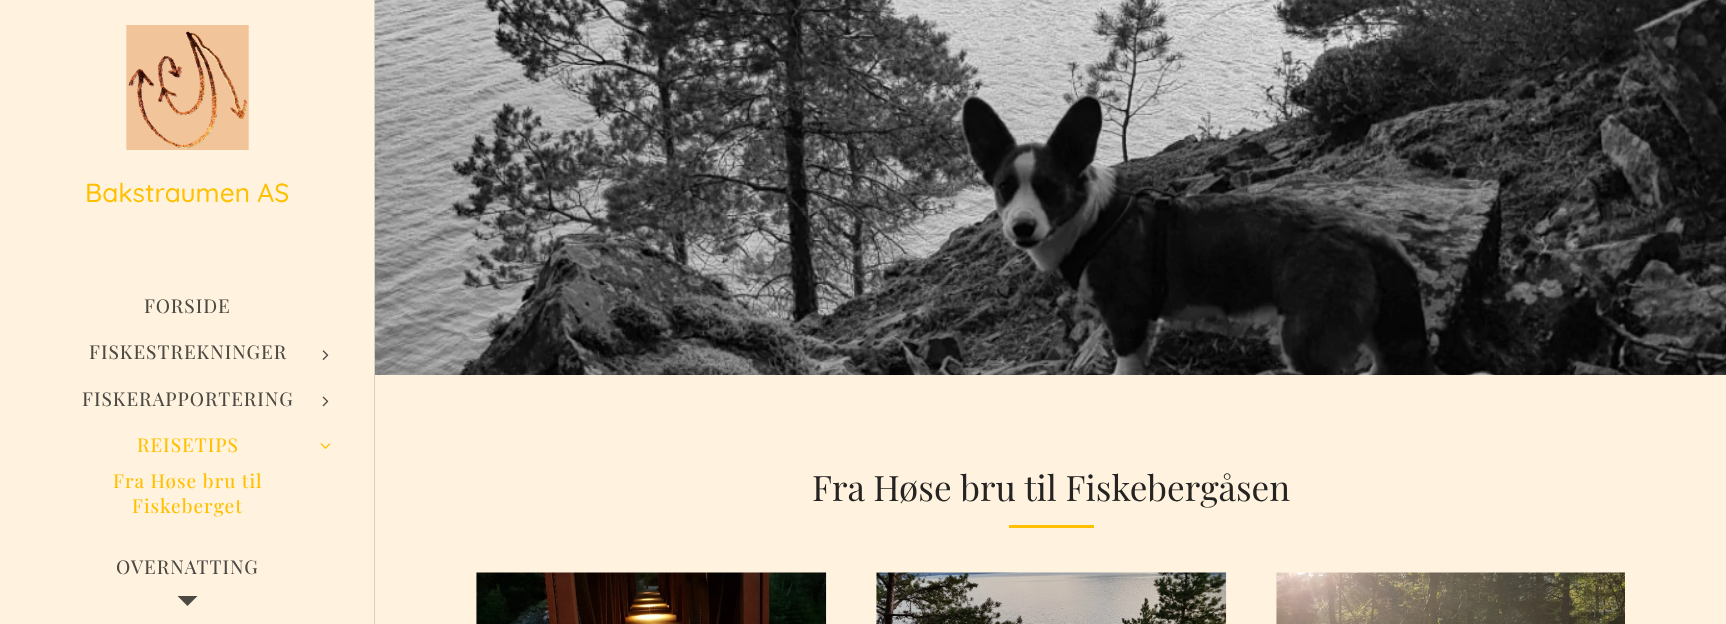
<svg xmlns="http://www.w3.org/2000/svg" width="1726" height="624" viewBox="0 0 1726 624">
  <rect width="100%" height="100%" fill="#fff"/>
  <path d="M0 0h374v624H0z" fill="#fff3e0"/>
  <image x="126" y="25" width="123" height="125" href="img/1.png"/>
  <image x="322" y="350" width="7" height="10" href="img/2.png"/>
  <image x="322" y="396" width="7" height="11" href="img/3.png"/>
  <image x="320" y="443" width="11" height="6" href="img/4.png"/>
  <path d="M177.5 596H197.5L187.5 606Z" fill="#4d4943"/>
  <path d="M374 0h1v624H374z" fill="#d9cfbe"/>
  <image x="375" y="0" width="1351" height="375" href="img/5.png"/>
  <path d="M375 375h1351v249H375z" fill="#fff3e0"/>
  <path d="M1009 525h85v3H1009z" fill="#ffc000"/>
  <image x="476" y="572" width="351" height="52" href="img/6.png"/>
  <image x="876" y="572" width="351" height="52" href="img/7.png"/>
  <image x="1276" y="572" width="349" height="52" href="img/8.png"/>
  <text x="85" y="202" font-family="Quicksand" font-size="26.25" font-weight="500" fill="#ffc000">Bakstraumen AS</text>
  <g font-family="'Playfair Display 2'" font-size="19" letter-spacing="1" fill="#4d4943">
    <text x="144" y="313">FORSIDE</text>
    <text x="89" y="359">FISKESTREKNINGER</text>
    <text x="82" y="406">FISKERAPPORTERING</text>
  </g>
  <g font-family="'Playfair Display 2'" font-size="19" letter-spacing="1" fill="#ffc000">
    <text x="137" y="452">REISETIPS</text>
    <text x="113" y="488">Fra Høse bru til</text>
    <text x="132" y="513">Fiskeberget</text>
  </g>
  <text x="116" y="574" font-family="'Playfair Display 2'" font-size="19" letter-spacing="1" fill="#4d4943">OVERNATTING</text>
  <text x="812" y="501" font-family="Playfair Display" font-size="35" fill="#262422">Fra Høse bru til Fiskebergåsen</text>
</svg>
